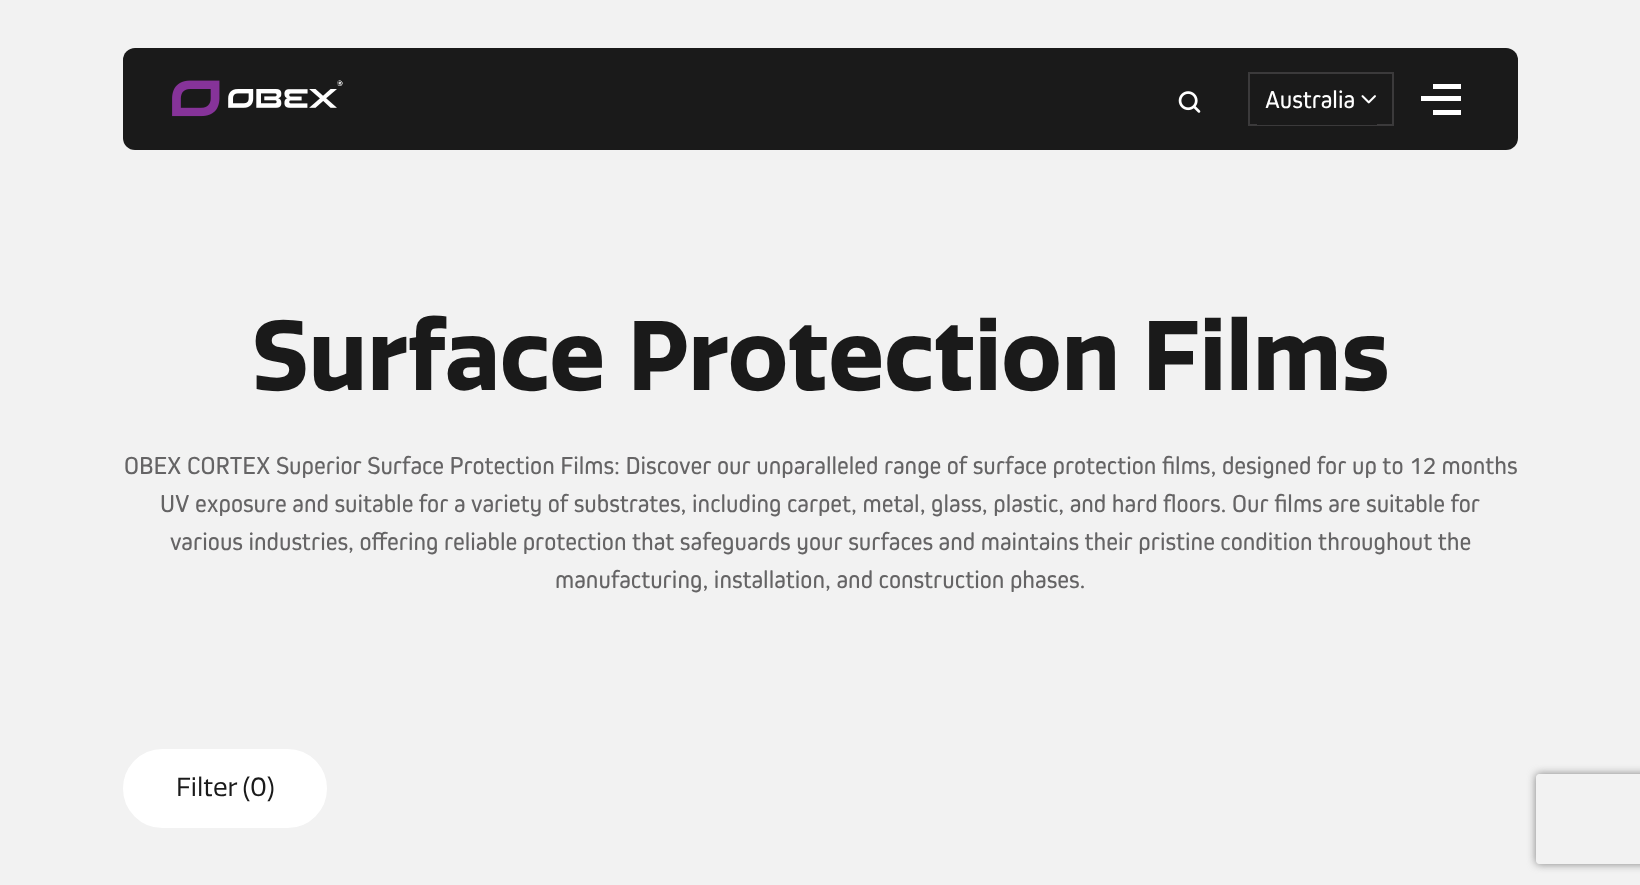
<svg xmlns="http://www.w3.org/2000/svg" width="1640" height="885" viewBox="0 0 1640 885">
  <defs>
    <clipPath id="clip1"><path d="M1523 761H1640V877H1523ZM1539 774H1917C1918.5 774 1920 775.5 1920 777V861C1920 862.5 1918.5 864 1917 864H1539C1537.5 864 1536 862.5 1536 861V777C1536 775.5 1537.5 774 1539 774Z" clip-rule="evenodd"/></clipPath>
  </defs>
  <rect width="100%" height="100%" fill="#f2f2f2"/>
  <rect x="123" y="48" width="1395" height="102" rx="12" fill="#1a1a1a"/>
  <image x="172" y="80" width="171" height="37" href="img/1.png"/>
  <image x="1178" y="91" width="23" height="22" href="img/2.png"/>
  <path d="M1249 73h144v52H1249z" fill="none" stroke="#3b3a3b" stroke-width="2"/>
  <path d="M1257 124h120v1H1257z" fill="#1a1a1a"/>
  <image x="1361" y="95" width="15" height="9" href="img/3.png"/>
  <path d="M1433 84h28v5H1433z" fill="#fff"/>
  <path d="M1421 96h40v5H1421z" fill="#fff"/>
  <path d="M1433 110h28v5H1433z" fill="#fff"/>
  <rect x="125.5" y="751.5" width="199" height="74" rx="37" fill="#fff" stroke="#fff" stroke-width="5"/>
  <g clip-path="url(#clip1)">
    <rect x="1536" y="774" width="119" height="90" rx="3" fill="#808080" filter="blur(4px)"/>
  </g>
  <text x="1265" y="108" font-family="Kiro" font-size="25.5" fill="#fff">Australia</text>
  <text x="252" y="390" font-family="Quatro" font-size="96" font-weight="bold" fill="#1a1a1a">Surface Protection Films</text>
  <g font-family="Kiro" font-size="25.5" fill="#656465">
    <text x="124" y="474">OBEX CORTEX Superior Surface Protection Films: Discover our unparalleled range of surface protection films, designed for up to 12 months</text>
    <text x="160" y="512">UV exposure and suitable for a variety of substrates, including carpet, metal, glass, plastic, and hard floors. Our films are suitable for</text>
    <text x="170" y="550">various industries, offering reliable protection that safeguards your surfaces and maintains their pristine condition throughout the</text>
    <text x="555" y="588">manufacturing, installation, and construction phases.</text>
  </g>
  <g font-family="Quatro" font-size="25.5" fill="#1a1a1a">
    <text x="176" y="796" word-spacing="-1">Filter (</text>
    <text x="250" y="796">0</text>
    <text x="267" y="796">)</text>
  </g>
</svg>
